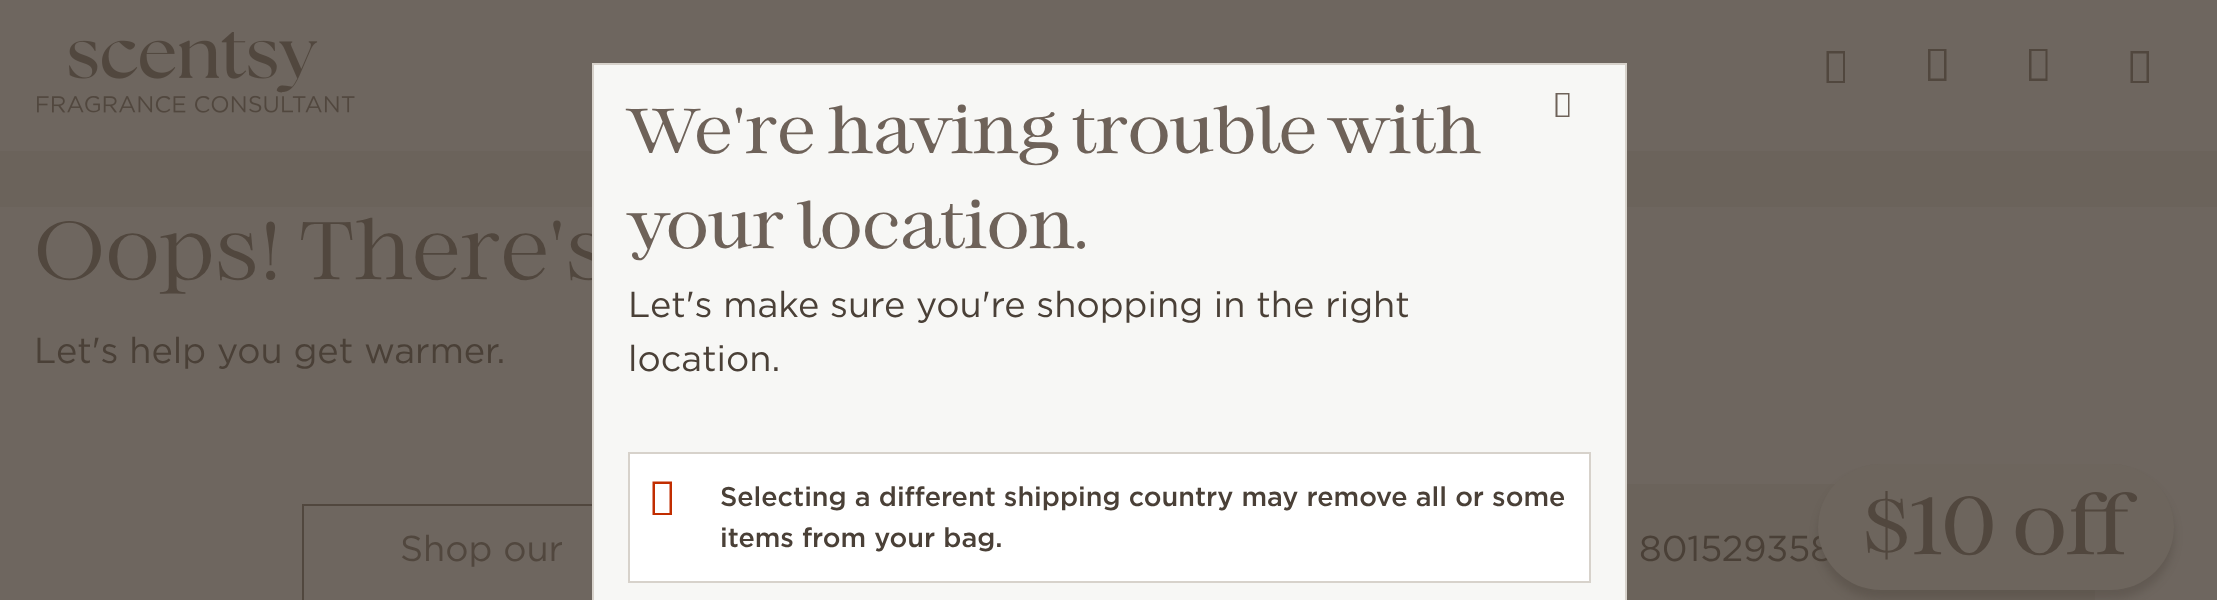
<svg xmlns="http://www.w3.org/2000/svg" width="2217" height="600" viewBox="0 0 2217 600">
  <rect width="100%" height="100%" fill="#6e665f"/>
  <image x="37" y="32" width="318" height="81" href="img/1.png"/>
  <path d="M1826.5 83V51H1845V83ZM1829 81H1843V53.5H1829Z" fill="#51473e"/>
  <path d="M1928 81V49H1946.5V81ZM1930.5 78.5H1944V51H1930.5Z" fill="#51473e"/>
  <path d="M2029 81V49H2047.5V81ZM2031.5 78.5H2045.5V51H2031.5Z" fill="#51473e"/>
  <path d="M2130.5 83V51H2149V83ZM2133 81H2146.5V53.5H2133Z" fill="#51473e"/>
  <path d="M0 151h2217v56H0z" fill="#6b635b"/>
  <path d="M303 505h358v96H303z" fill="none" stroke="#51473e" stroke-width="2"/>
  <path d="M1627 484h468v116H1627z" fill="#6b635b"/>
  <rect x="1818" y="473" width="356" height="126" rx="63" fill="#3b332c40" filter="blur(4.5px)"/>
  <text x="34" y="279" font-family="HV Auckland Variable" font-size="81" font-weight="800" fill="#51473e">Oops! There's</text>
  <path d="M593 64h1033v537H593z" fill="#f7f7f5" stroke="#d7d2cb" stroke-width="2"/>
  <path d="M629 453h961v129H629z" fill="#fff" stroke="#d7d2cb" stroke-width="2"/>
  <path d="M652.5 515V481.5H672V515ZM655 513H669.5V484H655Z" fill="#c12d00"/>
  <g font-family="Gotham" font-size="27" font-weight="500" fill="#4a4037">
    <text x="720" y="547">items from your bag.</text>
    <text x="720" y="506">Selecting a different shipping country may remove all or some</text>
  </g>
  <path d="M1555.5 117V93H1569.5V117ZM1557.5 115.5H1568V94.5H1557.5Z" fill="#6e6259"/>
  <g font-family="Gotham" font-size="36" fill="#4a4037">
    <text x="628" y="371">location.</text>
    <text x="628" y="317">Let's make sure you're shopping in the right</text>
  </g>
  <g font-family="HV Auckland Variable" font-size="63" font-weight="900" fill="#6e6259">
    <text x="628" y="248">your location.</text>
    <text x="628" y="153">We're having trouble with</text>
  </g>
  <text x="34" y="363" font-family="Gotham" font-size="36" fill="#4a4037">Let's help you get warmer.</text>
  <text x="400" y="561" font-family="Gotham" font-size="36" fill="#51473e">Shop our</text>
  <text x="1639" y="561" font-family="Gotham" font-size="36" fill="#4a4037">801529358</text>
  <rect x="1818" y="464" width="356" height="126" rx="63" fill="#6d655d"/>
  <text x="1862" y="554" font-family="HV Auckland Variable" font-size="81" font-weight="900" fill="#51473e">$10 off</text>
</svg>
